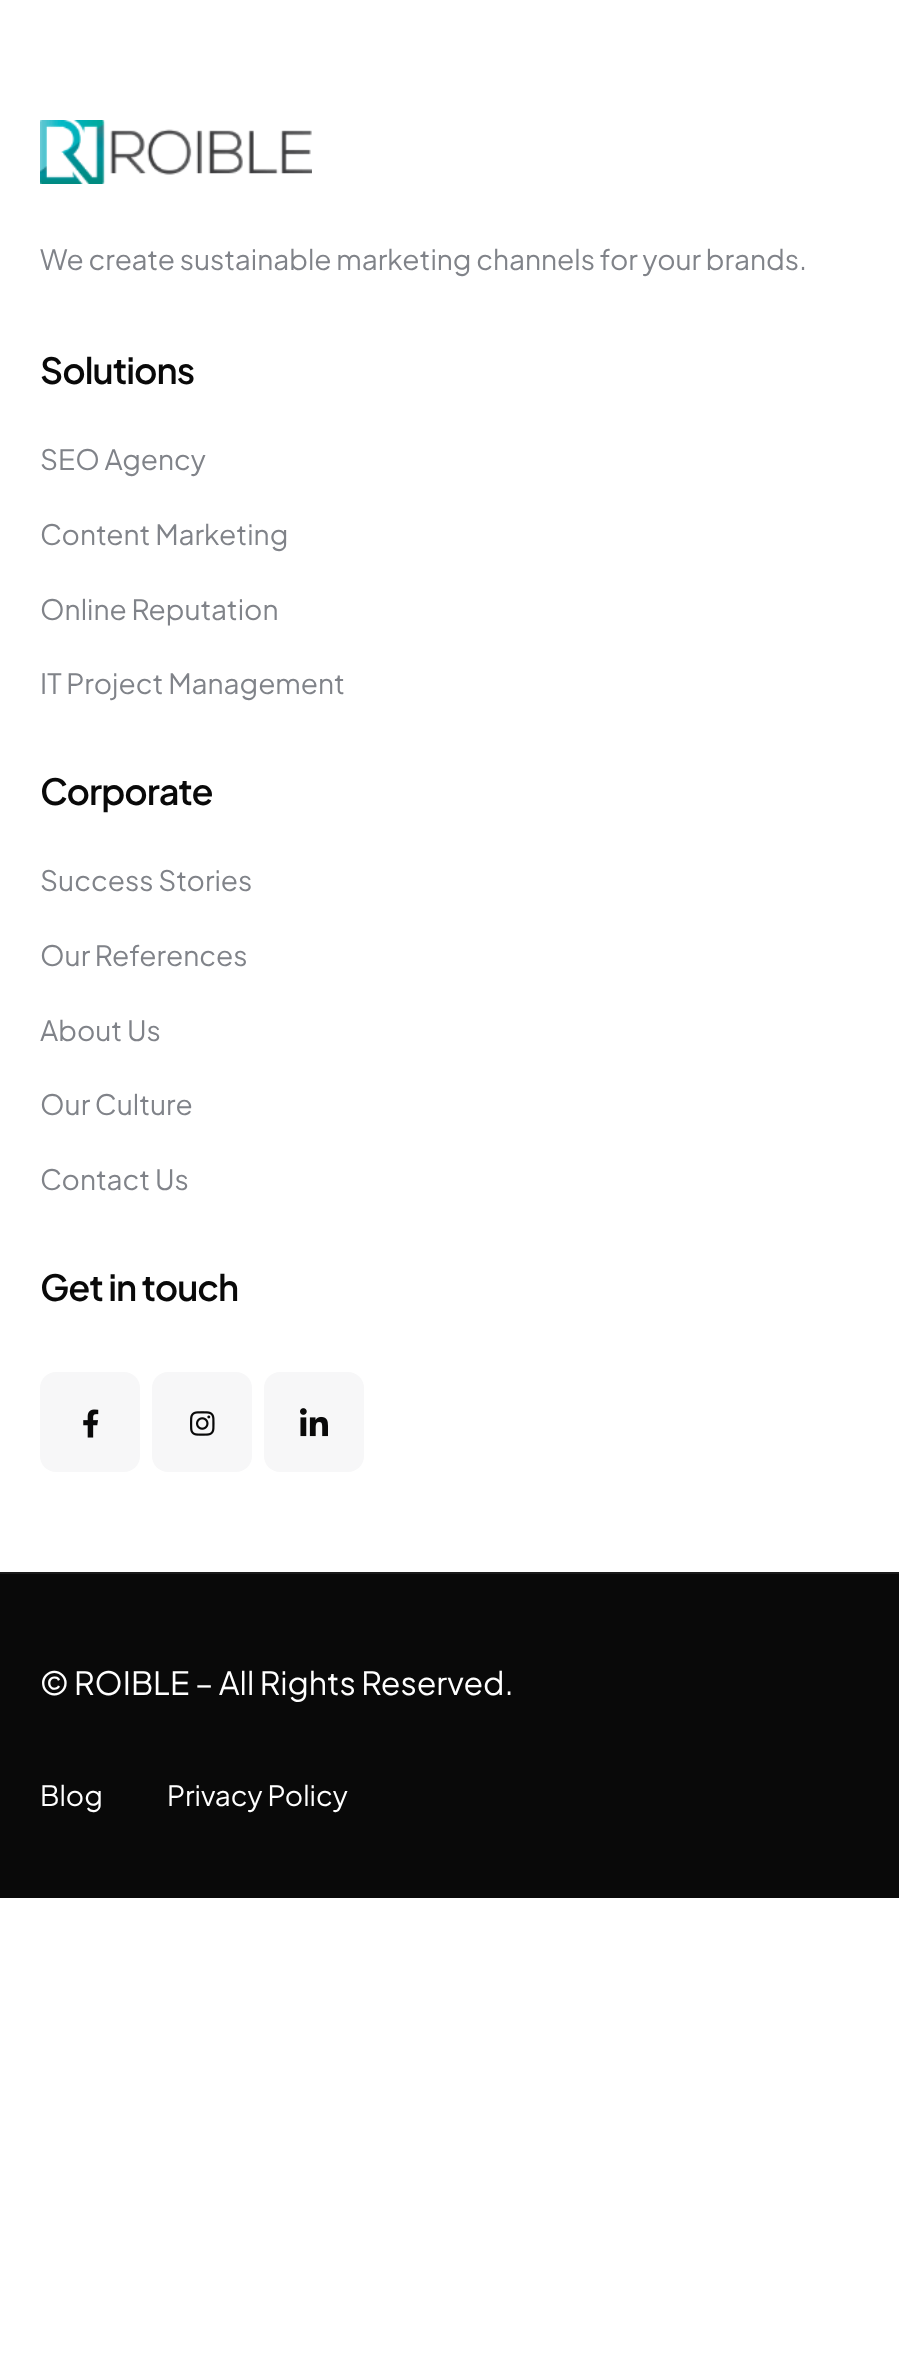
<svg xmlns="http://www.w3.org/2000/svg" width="899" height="2360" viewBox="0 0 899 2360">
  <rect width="100%" height="100%" fill="#fff"/>
  <image x="40" y="120" width="272" height="64" href="img/1.png"/>
  <rect x="40" y="1372" width="100" height="100" rx="16" fill="#f7f7f8"/>
  <image x="83" y="1409" width="16" height="29" href="img/2.png"/>
  <rect x="152" y="1372" width="100" height="100" rx="16" fill="#f7f7f8"/>
  <image x="190" y="1411" width="25" height="25" href="img/3.png"/>
  <rect x="264" y="1372" width="100" height="100" rx="16" fill="#f7f7f8"/>
  <image x="300" y="1408" width="28" height="29" href="img/4.png"/>
  <path d="M0 1574h899v324H0z" fill="#090909"/>
  <path d="M0 1572h899v2H0z" fill="#1a1a1a"/>
  <text x="40" y="270" font-family="Plus Jakarta Sans" font-size="28" fill="#808389">We create sustainable marketing channels for your brands.</text>
  <text x="40" y="384" font-family="Plus Jakarta Sans" font-size="36" font-weight="600" letter-spacing="-1" fill="#090909">Solutions</text>
  <g font-family="Plus Jakarta Sans" font-size="28" fill="#808389">
    <text x="40" y="470">SEO Agency</text>
    <text x="40" y="545">Content Marketing</text>
    <text x="40" y="620">Online Reputation</text>
    <text x="40" y="694">IT Project Management</text>
  </g>
  <text x="40" y="805" font-family="Plus Jakarta Sans" font-size="36" font-weight="600" letter-spacing="-1" fill="#090909">Corporate</text>
  <g font-family="Plus Jakarta Sans" font-size="28" fill="#808389">
    <text x="40" y="891">Success Stories</text>
    <text x="40" y="966">Our References</text>
    <text x="40" y="1041">About Us</text>
    <text x="40" y="1115">Our Culture</text>
    <text x="40" y="1190">Contact Us</text>
  </g>
  <text x="40" y="1301" font-family="Plus Jakarta Sans" font-size="36" font-weight="600" letter-spacing="-1" fill="#090909">Get in touch</text>
  <text x="40" y="1695" font-family="Plus Jakarta Sans" font-size="32" fill="#fff">© ROIBLE – All Rights Reserved.</text>
  <g font-family="Plus Jakarta Sans" font-size="28" fill="#fff">
    <text x="40" y="1806">Blog</text>
    <text x="167" y="1806">Privacy Policy</text>
  </g>
</svg>
